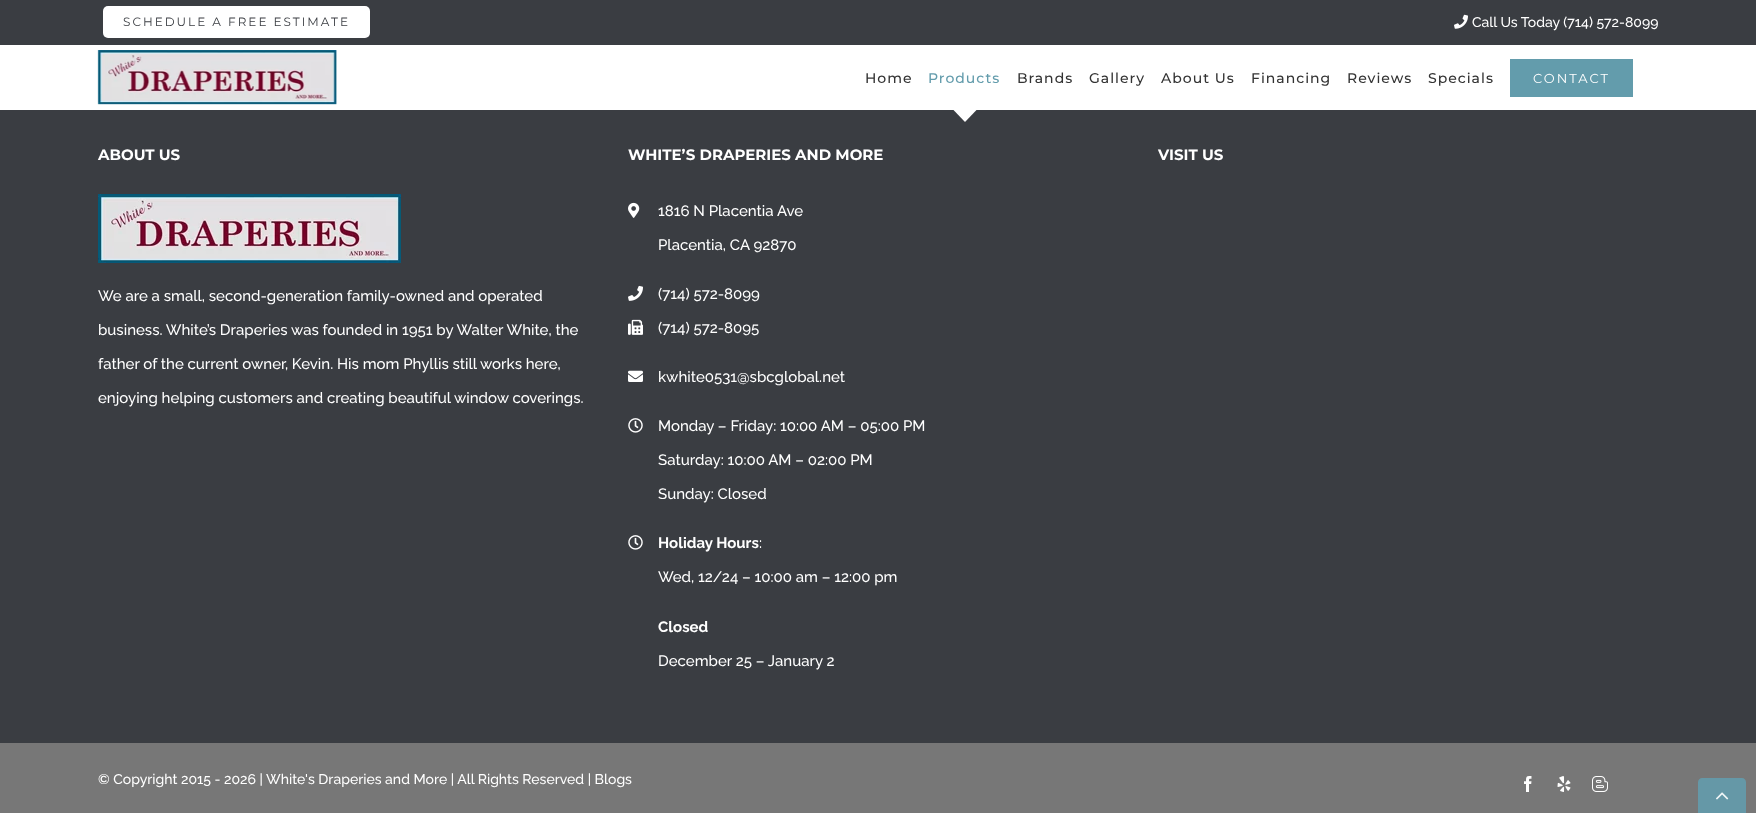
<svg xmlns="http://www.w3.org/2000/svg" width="1756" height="813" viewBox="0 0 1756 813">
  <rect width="100%" height="100%" fill="#3a3d42"/>
  <rect x="103" y="6" width="267" height="32" rx="5" fill="#fff"/>
  <image x="1454" y="14" width="14" height="15" href="img/1.png"/>
  <path d="M0 45h1756v65H0z" fill="#fff"/>
  <image x="97" y="50" width="240" height="55" href="img/2.png"/>
  <path d="M953.5 110L965 122L976.5 110Z" fill="#fff"/>
  <path d="M1510 59h123v38H1510z" fill="#639cac"/>
  <image x="98" y="194" width="303" height="69" href="img/3.png"/>
  <image x="628" y="202" width="12" height="16" href="img/4.png"/>
  <image x="628" y="285" width="15" height="16" href="img/5.png"/>
  <image x="628" y="319" width="15" height="16" href="img/6.png"/>
  <image x="628" y="370" width="15" height="12" href="img/7.png"/>
  <image x="628" y="418" width="15" height="15" href="img/8.png"/>
  <image x="628" y="535" width="15" height="15" href="img/8.png"/>
  <path d="M0 743h1756v70H0z" fill="#777"/>
  <image x="1524" y="776" width="8" height="16" href="img/9.png"/>
  <image x="1557" y="776" width="14" height="16" href="img/10.png"/>
  <image x="1592" y="776" width="16" height="16" href="img/11.png"/>
  <path d="M1702 778H1742C1744 778 1746 780 1746 782V813H1698V782C1698 780 1700 778 1702 778Z" fill="#6598a7"/>
  <image x="1716" y="792" width="13" height="8" href="img/12.png"/>
  <text x="123" y="26" font-family="Montserrat" font-size="12" letter-spacing="2" fill="#3a3d42">SCHEDULE A FREE ESTIMATE</text>
  <text x="1472" y="27" font-family="Raleway" font-size="14" font-weight="500" fill="#fff">Call Us Today (714) 572-8099</text>
  <text x="865" y="83" font-family="Montserrat" font-size="14" font-weight="500" letter-spacing="1" fill="#333">Home</text>
  <text x="928" y="83" font-family="Montserrat" font-size="14" font-weight="500" letter-spacing="1" fill="#639cac">Products</text>
  <g font-family="Montserrat" font-size="14" font-weight="500" letter-spacing="1" fill="#333">
    <text x="1017" y="83">Brands</text>
    <text x="1089" y="83">Gallery</text>
    <text x="1161" y="83">About Us</text>
    <text x="1251" y="83">Financing</text>
    <text x="1347" y="83">Reviews</text>
    <text x="1428" y="83">Specials</text>
  </g>
  <text x="1533" y="83" font-family="Montserrat" font-size="13" letter-spacing="2" fill="#fff">CONTACT</text>
  <text x="98" y="160" font-family="Montserrat" font-size="15" font-weight="bold" fill="#fff">ABOUT US</text>
  <g font-family="Raleway" font-size="15" font-weight="500" fill="#fff">
    <text x="98" y="301">We are a small, second-generation family-owned and operated</text>
    <text x="98" y="335">business. White’s Draperies was founded in 1951 by Walter White, the</text>
    <text x="98" y="369">father of the current owner, Kevin. His mom Phyllis still works here,</text>
    <text x="98" y="403">enjoying helping customers and creating beautiful window coverings.</text>
  </g>
  <text x="628" y="160" font-family="Montserrat" font-size="15" font-weight="bold" fill="#fff">WHITE’S DRAPERIES AND MORE</text>
  <g font-family="Raleway" font-size="15" font-weight="500" fill="#fff">
    <text x="658" y="216">1816 N Placentia Ave</text>
    <text x="658" y="250">Placentia, CA 92870</text>
    <text x="658" y="299">(714) 572-8099</text>
    <text x="658" y="333">(714) 572-8095</text>
    <text x="658" y="382">kwhite0531@sbcglobal.net</text>
    <text x="658" y="431">Monday – Friday: 10:00 AM – 05:00 PM</text>
    <text x="658" y="465">Saturday: 10:00 AM – 02:00 PM</text>
    <text x="658" y="499">Sunday: Closed</text>
  </g>
  <text x="658" y="548" font-family="Raleway" font-size="15" font-weight="bold" fill="#fff">Holiday Hours</text>
  <g font-family="Raleway" font-size="15" font-weight="500" fill="#fff">
    <text x="759" y="548">:</text>
    <text x="658" y="582">Wed, 12/24 – 10:00 am – 12:00 pm</text>
  </g>
  <text x="658" y="632" font-family="Raleway" font-size="15" font-weight="bold" fill="#fff">Closed</text>
  <text x="658" y="666" font-family="Raleway" font-size="15" font-weight="500" fill="#fff">December 25 – January 2</text>
  <text x="1158" y="160" font-family="Montserrat" font-size="15" font-weight="bold" fill="#fff">VISIT US</text>
  <g font-family="Raleway" font-size="14" font-weight="500" fill="#fff">
    <text x="98" y="784">© Copyright 2015 -</text>
    <text x="224" y="784">2026 |</text>
    <text x="266" y="784">White's Draperies and More | All Rights Reserved | Blogs</text>
  </g>
</svg>
